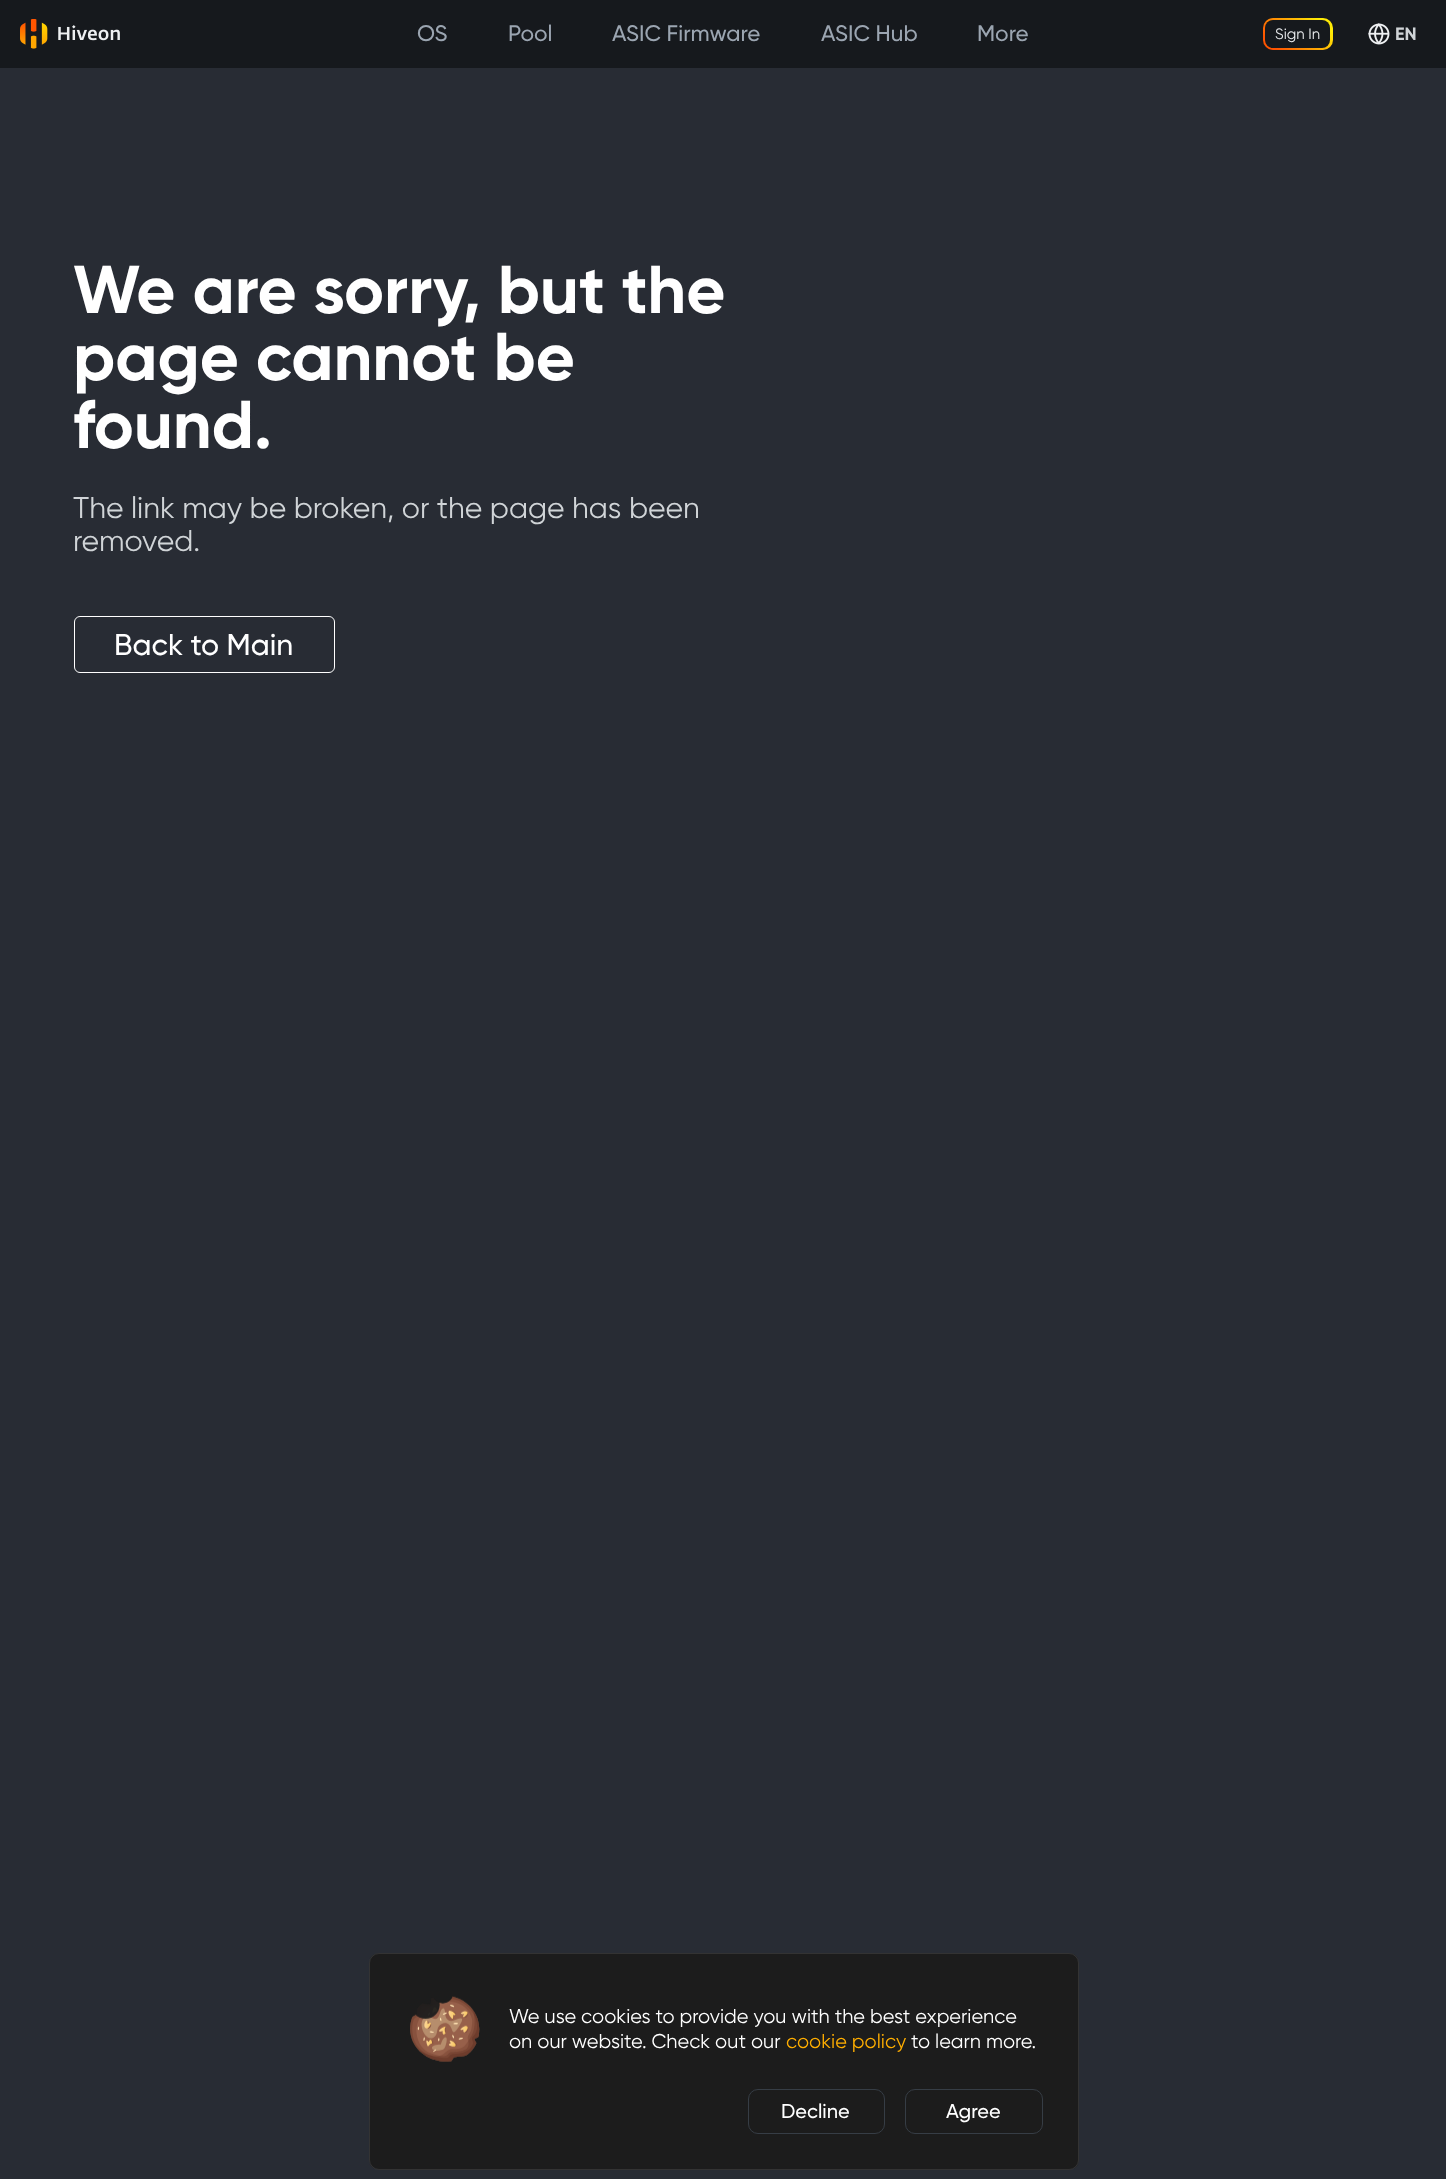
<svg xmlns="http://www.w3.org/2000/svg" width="1446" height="2179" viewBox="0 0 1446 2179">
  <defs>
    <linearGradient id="g1" gradientUnits="userSpaceOnUse" x1="1323" y1="7.9" x2="1272" y2="60"><stop offset="0.15" stop-color="#ffeb06"/><stop offset="0.85" stop-color="#fe5400"/></linearGradient>
  </defs>
  <rect width="100%" height="100%" fill="#282c34"/>
  <path d="M0 0h1446v68H0z" fill="#16191d"/>
  <image x="20" y="19" width="100" height="30" href="img/1.png"/>
  <rect x="1263" y="18" width="70" height="32" rx="10" fill="url(#g1)"/>
  <rect x="1265" y="20" width="65" height="28" rx="8" fill="#16191d"/>
  <image x="1368" y="23" width="22" height="22" href="img/2.png"/>
  <rect x="74.5" y="616.5" width="260" height="56" rx="5.5" fill="none" stroke="#fff"/>
  <rect x="369" y="1953" width="710" height="217" rx="10" fill="#1c1c1c"/>
  <rect x="369.5" y="1953.5" width="709" height="216" rx="9.5" fill="none" stroke="#ffffff1a"/>
  <image x="410" y="1996" width="70" height="66" href="img/3.png"/>
  <rect x="748.5" y="2089.5" width="136" height="44" rx="9.5" fill="none" stroke="#363d45"/>
  <rect x="905.5" y="2089.5" width="137" height="44" rx="9.5" fill="none" stroke="#363d45"/>
  <g font-family="Gilroy" font-size="22.5" font-weight="500" fill="#9ba5b1">
    <text x="417" y="41">OS</text>
    <text x="508" y="41">Pool</text>
    <text x="612" y="41">ASIC Firmware</text>
    <text x="821" y="41">ASIC Hub</text>
    <text x="977" y="41">More</text>
  </g>
  <text x="1275" y="39" font-family="Gilroy" font-size="15" fill="#eef0f2">Sign In</text>
  <text x="1395" y="40" font-family="Gilroy" font-size="18" font-weight="bold" fill="#d0d4d7">EN</text>
  <g font-family="Gilroy" font-size="67.5" font-weight="bold" fill="#fff">
    <text x="73" y="313">We are sorry, but the</text>
    <text x="73" y="380">page cannot be</text>
    <text x="73" y="448">found.</text>
  </g>
  <g font-family="Gilroy" font-size="30" fill="#d0d4d7">
    <text x="73" y="518">The link may be broken, or the page has been</text>
    <text x="73" y="551">removed.</text>
  </g>
  <text x="114" y="655" font-family="Gilroy" font-size="30" font-weight="500" fill="#fff">Back to Main</text>
  <g font-family="Gilroy" font-size="20" fill="#fff">
    <text x="509" y="2023">We use cookies to provide you with the best experience</text>
    <text x="509" y="2048">on our website. Check out our</text>
  </g>
  <text x="786" y="2048" font-family="Gilroy" font-size="20" fill="#ffae00">cookie policy</text>
  <text x="911" y="2048" font-family="Gilroy" font-size="20" fill="#fff">to learn more.</text>
  <g font-family="Gilroy" font-size="20" font-weight="500" fill="#fff">
    <text x="781" y="2118">Decline</text>
    <text x="946" y="2118">Agree</text>
  </g>
</svg>
